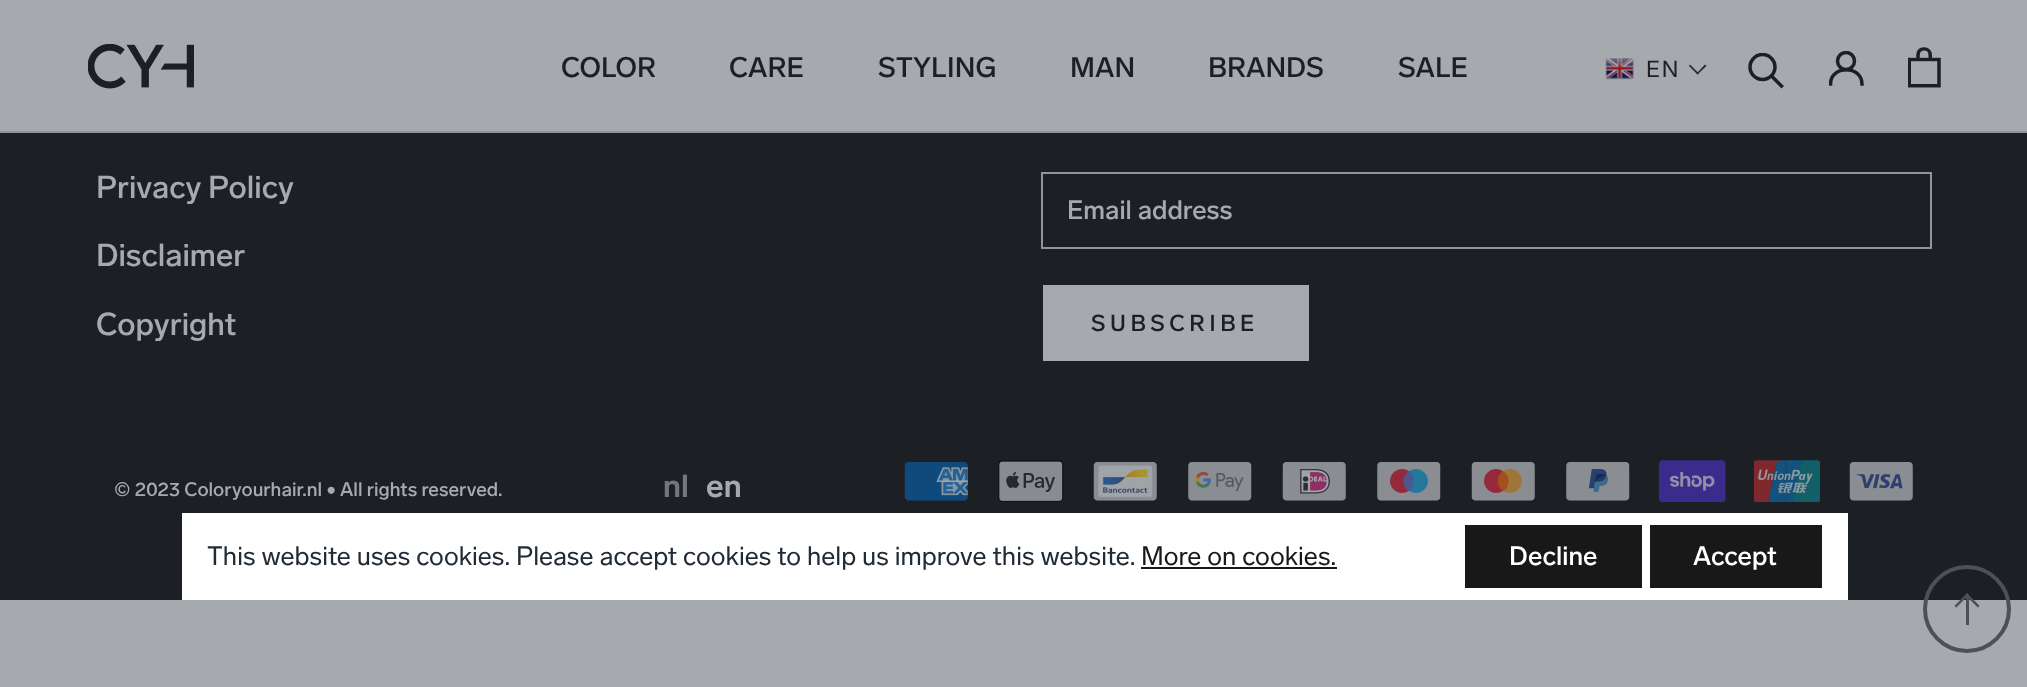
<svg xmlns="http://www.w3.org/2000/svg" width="2027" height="687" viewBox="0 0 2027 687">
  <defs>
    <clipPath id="clip1"><path d="M1748 53h37v36H1748z"/></clipPath>
    <clipPath id="clip2"><path d="M1829 51h35v35H1829z"/></clipPath>
  </defs>
  <rect width="100%" height="100%" fill="#a6aaaf"/>
  <path d="M0 131h2027v2H0z" fill="#91959a"/>
  <image x="88" y="44" width="106" height="45" href="img/1.png"/>
  <image x="1605" y="58" width="29" height="22" href="img/2.png"/>
  <path d="M1705 64.5L1706.5 66L1697.5 74.5L1696.5 73.5Z" fill="#292d32"/>
  <path d="M1690 64.5L1699 73.5L1697.5 74.5L1689 66Z" fill="#292d32"/>
  <path d="M1781.5 86L1771.5 76" fill="none" stroke="#1c2024" stroke-width="3.5" stroke-linecap="square"/>
  <g clip-path="url(#clip1)">
    <circle cx="1762.5" cy="67" r="12.5" fill="none" stroke="#1c2024" stroke-width="3.5"/>
  </g>
  <g clip-path="url(#clip2)">
    <path d="M1830.5 84C1830.5 65 1862 65 1862 84" fill="none" stroke="#1c2024" stroke-width="3.5" stroke-linecap="square"/>
    <circle cx="1846" cy="61" r="8.5" fill="none" stroke="#1c2024" stroke-width="3.5"/>
  </g>
  <image x="1908" y="47" width="33" height="41" href="img/3.png"/>
  <path d="M0 133h2027v467H0z" fill="#1c2024"/>
  <path d="M1042 173h889v75H1042z" fill="none" stroke="#91959a" stroke-width="2"/>
  <path d="M1043 285h266v76H1043z" fill="#a6aaaf"/>
  <image x="904" y="462" width="64" height="39" href="img/4.png"/>
  <image x="998" y="460" width="66" height="42" href="img/5.png"/>
  <image x="1093" y="462" width="64" height="39" href="img/6.png"/>
  <image x="1188" y="462" width="64" height="39" href="img/7.png"/>
  <image x="1282" y="462" width="64" height="39" href="img/8.png"/>
  <image x="1377" y="462" width="64" height="39" href="img/9.png"/>
  <image x="1471" y="462" width="64" height="39" href="img/10.png"/>
  <image x="1566" y="462" width="64" height="39" href="img/11.png"/>
  <image x="1659" y="460" width="67" height="42" href="img/12.png"/>
  <image x="1754" y="460" width="66" height="42" href="img/13.png"/>
  <image x="1849" y="462" width="64" height="39" href="img/14.png"/>
  <circle cx="1967" cy="609" r="42" fill="none" stroke="#4d5155" stroke-width="4"/>
  <image x="1954" y="593" width="26" height="32" href="img/15.png"/>
  <path d="M182 513h1666v87H182z" fill="#fff"/>
  <path d="M1141 567h196v2H1141z" fill="#181818"/>
  <path d="M1465 525h177v63H1465z" fill="#181818"/>
  <path d="M1650 525h172v63H1650z" fill="#181818"/>
  <g font-family="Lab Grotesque" font-size="28" font-weight="500" fill="#1c2024">
    <text x="561" y="77">COLOR</text>
    <text x="729" y="77">CARE</text>
    <text x="878" y="77">STYLING</text>
    <text x="1070" y="77">MAN</text>
    <text x="1208" y="77">BRANDS</text>
    <text x="1398" y="77">SALE</text>
  </g>
  <text x="1646" y="77" font-family="Lab Grotesque" font-size="22.75" letter-spacing="2" fill="#1c2024">EN</text>
  <g font-family="Lab Grotesque" font-size="31.5" font-weight="500" fill="#a6aaaf">
    <text x="96" y="198">Privacy Policy</text>
    <text x="96" y="266">Disclaimer</text>
    <text x="96" y="335">Copyright</text>
  </g>
  <text x="1067" y="219" font-family="Lab Grotesque" font-size="26.25" font-weight="500" fill="#a6aaaf">Email address</text>
  <text x="1091" y="331" font-family="Lab Grotesque" font-size="22.75" font-weight="500" letter-spacing="4.5" fill="#1c2024">SUBSCRIBE</text>
  <text x="114" y="496" font-family="Lab Grotesque" font-size="19.25" font-weight="500" fill="#a6aaaf">© 2023 Coloryourhair.nl • All rights reserved.</text>
  <text x="663" y="497" font-family="Lab Grotesque" font-size="31.5" font-weight="bold" fill="#73777c">nl</text>
  <text x="706" y="497" font-family="Lab Grotesque" font-size="31.5" font-weight="bold" fill="#a6aaaf">en</text>
  <text x="207" y="565" font-family="Lab Grotesque" font-size="26.25" fill="#212b36">This website uses cookies. Please accept cookies to help us improve this website.</text>
  <text x="1141" y="565" font-family="Lab Grotesque" font-size="26.25" fill="#181818">More on cookies.</text>
  <g font-family="Lab Grotesque" font-size="26.25" font-weight="500" fill="#fff">
    <text x="1509" y="565">Decline</text>
    <text x="1693" y="565">Accept</text>
  </g>
</svg>
